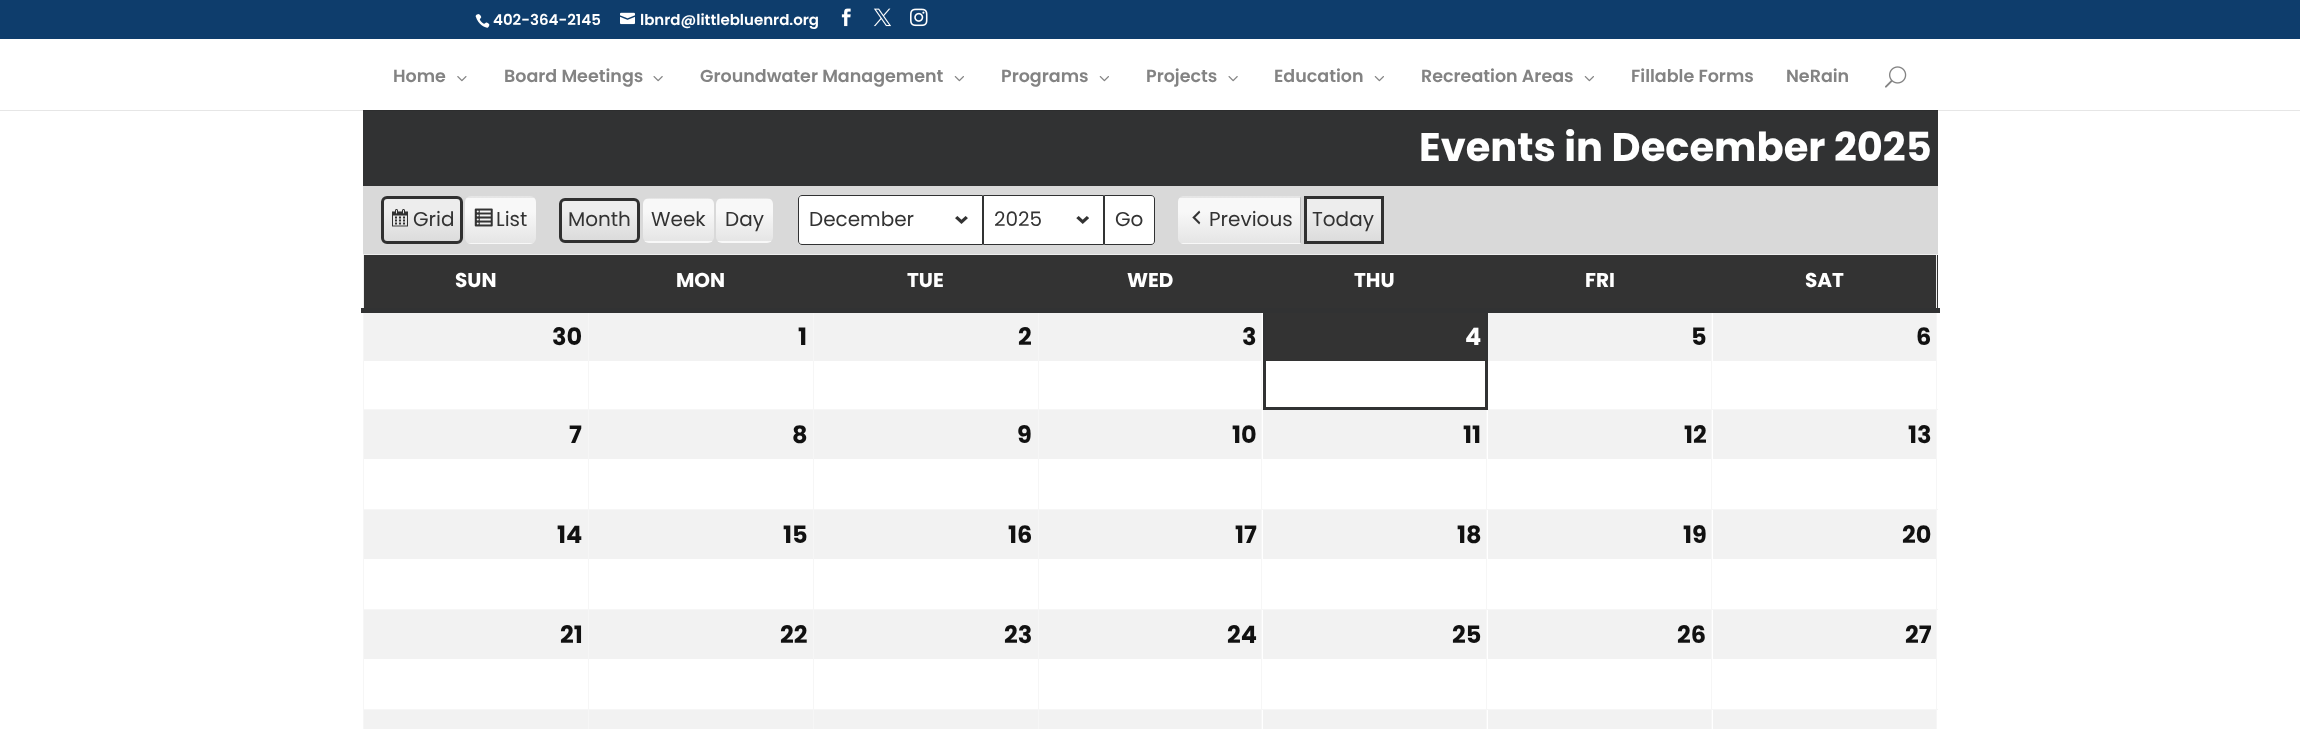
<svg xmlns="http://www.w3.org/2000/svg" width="2300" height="729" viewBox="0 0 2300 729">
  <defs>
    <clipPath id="clip1"><rect x="381" y="196" width="82" height="48" rx="6"/></clipPath>
    <linearGradient id="g1" gradientUnits="userSpaceOnUse" x1="422" y1="243" x2="422" y2="198"><stop offset="0" stop-color="#dbdbdb"/><stop offset="0.7" stop-color="#ededed"/></linearGradient>
    <clipPath id="clip2"><rect x="465" y="196" width="71" height="48" rx="6"/></clipPath>
    <linearGradient id="g2" gradientUnits="userSpaceOnUse" x1="501" y1="198" x2="501" y2="153"><stop offset="0" stop-color="#e5e5e5"/><stop offset="0.7" stop-color="#f8f8f8"/></linearGradient>
    <linearGradient id="g3" gradientUnits="userSpaceOnUse" x1="501" y1="243" x2="501" y2="198"><stop offset="0" stop-color="#e5e5e5"/><stop offset="0.7" stop-color="#f8f8f8"/></linearGradient>
    <linearGradient id="g4" gradientUnits="userSpaceOnUse" x1="501" y1="288" x2="501" y2="243"><stop offset="0" stop-color="#e5e5e5"/><stop offset="0.7" stop-color="#f8f8f8"/></linearGradient>
    <clipPath id="clip3"><rect x="559" y="198" width="81" height="45" rx="6"/></clipPath>
    <linearGradient id="g5" gradientUnits="userSpaceOnUse" x1="599" y1="241" x2="599" y2="199"><stop offset="0" stop-color="#dbdbdb"/><stop offset="0.7" stop-color="#ededed"/></linearGradient>
    <clipPath id="clip4"><rect x="643" y="198" width="71" height="45" rx="6"/></clipPath>
    <linearGradient id="g6" gradientUnits="userSpaceOnUse" x1="678" y1="199" x2="678" y2="156"><stop offset="0" stop-color="#e5e5e5"/><stop offset="0.7" stop-color="#f8f8f8"/></linearGradient>
    <linearGradient id="g7" gradientUnits="userSpaceOnUse" x1="678" y1="241" x2="678" y2="199"><stop offset="0" stop-color="#e5e5e5"/><stop offset="0.7" stop-color="#f8f8f8"/></linearGradient>
    <linearGradient id="g8" gradientUnits="userSpaceOnUse" x1="678" y1="284" x2="678" y2="241"><stop offset="0" stop-color="#e5e5e5"/><stop offset="0.7" stop-color="#f8f8f8"/></linearGradient>
    <clipPath id="clip5"><rect x="716" y="198" width="57" height="45" rx="6"/></clipPath>
    <linearGradient id="g9" gradientUnits="userSpaceOnUse" x1="744" y1="199" x2="744" y2="156"><stop offset="0" stop-color="#e5e5e5"/><stop offset="0.7" stop-color="#f8f8f8"/></linearGradient>
    <linearGradient id="g10" gradientUnits="userSpaceOnUse" x1="744" y1="241" x2="744" y2="199"><stop offset="0" stop-color="#e5e5e5"/><stop offset="0.7" stop-color="#f8f8f8"/></linearGradient>
    <linearGradient id="g11" gradientUnits="userSpaceOnUse" x1="744" y1="284" x2="744" y2="241"><stop offset="0" stop-color="#e5e5e5"/><stop offset="0.7" stop-color="#f8f8f8"/></linearGradient>
    <clipPath id="clip6"><path d="M1184 196H1301V244H1184C1180.5 244 1178 241.5 1178 238V202C1178 198.5 1180.5 196 1184 196Z"/></clipPath>
    <linearGradient id="g12" gradientUnits="userSpaceOnUse" x1="1239" y1="198" x2="1239" y2="153"><stop offset="0" stop-color="#e5e5e5"/><stop offset="0.7" stop-color="#f8f8f8"/></linearGradient>
    <linearGradient id="g13" gradientUnits="userSpaceOnUse" x1="1239" y1="243" x2="1239" y2="198"><stop offset="0" stop-color="#e5e5e5"/><stop offset="0.7" stop-color="#f8f8f8"/></linearGradient>
    <linearGradient id="g14" gradientUnits="userSpaceOnUse" x1="1239" y1="288" x2="1239" y2="243"><stop offset="0" stop-color="#e5e5e5"/><stop offset="0.7" stop-color="#f8f8f8"/></linearGradient>
    <linearGradient id="g15" gradientUnits="userSpaceOnUse" x1="1344" y1="243" x2="1344" y2="198"><stop offset="0" stop-color="#dbdbdb"/><stop offset="0.7" stop-color="#ededed"/></linearGradient>
  </defs>
  <rect width="100%" height="100%" fill="#fff"/>
  <path d="M0 110h2300v1H0z" fill="#e6e6e6"/>
  <path d="M0 0h2300v39H0z" fill="#0e3d6c"/>
  <image x="475" y="14" width="15" height="14" href="img/1.png"/>
  <image x="620" y="12" width="15" height="13" href="img/2.png"/>
  <image x="841" y="8" width="10" height="19" href="img/3.png"/>
  <image x="873" y="8" width="18" height="19" href="img/4.png"/>
  <image x="910" y="8" width="18" height="19" href="img/5.png"/>
  <image x="457" y="76" width="10" height="6" href="img/6.png"/>
  <image x="653" y="76" width="10" height="6" href="img/7.png"/>
  <image x="954" y="76" width="10" height="6" href="img/8.png"/>
  <image x="1099" y="76" width="10" height="6" href="img/8.png"/>
  <image x="1228" y="76" width="10" height="6" href="img/7.png"/>
  <image x="1374" y="76" width="10" height="6" href="img/8.png"/>
  <image x="1584" y="76" width="10" height="6" href="img/8.png"/>
  <image x="1885" y="66" width="22" height="22" href="img/9.png"/>
  <path d="M363 111h1575v75H363z" fill="#313233"/>
  <path d="M363 110h1575v1H363z" fill="#2c2d2e"/>
  <path d="M363 186h1575v68H363z" fill="#d9d9d9"/>
  <g clip-path="url(#clip1)">
    <path d="M381 198h82v45H381z" fill="url(#g1)"/>
  </g>
  <image x="392" y="209" width="16" height="18" href="img/10.png"/>
  <rect x="382.5" y="197.5" width="79" height="45" rx="4.5" fill="none" stroke="#303030" stroke-width="3"/>
  <g clip-path="url(#clip2)">
    <path d="M465 196h71v2H465z" fill="url(#g2)"/>
    <path d="M465 198h71v45H465z" fill="url(#g3)"/>
    <path d="M465 243h71v1H465z" fill="url(#g4)"/>
  </g>
  <image x="474" y="208" width="19" height="19" href="img/11.png"/>
  <g clip-path="url(#clip3)">
    <path d="M559 199h81v42H559z" fill="url(#g5)"/>
  </g>
  <rect x="560.5" y="199.5" width="78" height="42" rx="4.5" fill="none" stroke="#303030" stroke-width="3"/>
  <g clip-path="url(#clip4)">
    <path d="M643 198h71v1H643z" fill="url(#g6)"/>
    <path d="M643 199h71v42H643z" fill="url(#g7)"/>
    <path d="M643 241h71v2H643z" fill="url(#g8)"/>
  </g>
  <g clip-path="url(#clip5)">
    <path d="M716 198h57v1H716z" fill="url(#g9)"/>
    <path d="M716 199h57v42H716z" fill="url(#g10)"/>
    <path d="M716 241h57v2H716z" fill="url(#g11)"/>
  </g>
  <path d="M802 195H983V245H802C800 245 798 243 798 241V199C798 197 800 195 802 195Z" fill="#fff"/>
  <image x="955" y="216" width="13" height="8" href="img/12.png"/>
  <path d="M802 195.5H982.5V244.5H802C800 244.5 798.5 243 798.5 241V199C798.5 197 800 195.5 802 195.5Z" fill="none" stroke="#313233"/>
  <path d="M984 196h119v48H984z" fill="#fff"/>
  <image x="1076" y="216" width="13" height="8" href="img/13.png"/>
  <path d="M983.5 195.5h120v49H983.5z" fill="none" stroke="#313233"/>
  <path d="M1104.5 195.5H1151C1153 195.5 1154.5 197 1154.5 199V241C1154.5 243 1153 244.5 1151 244.5H1104.5Z" fill="#fff" stroke="#313233"/>
  <g clip-path="url(#clip6)">
    <path d="M1178 196h123v2H1178z" fill="url(#g12)"/>
    <path d="M1178 198h123v45H1178z" fill="url(#g13)"/>
    <path d="M1178 243h123v1H1178z" fill="url(#g14)"/>
  </g>
  <path d="M1301 196V244L1300 242V198Z" fill="#bbb"/>
  <image x="1192" y="210" width="9" height="15" href="img/14.png"/>
  <path d="M1307 199h74v42H1307z" fill="url(#g15)"/>
  <path d="M1305.5 197.5h77v45H1305.5z" fill="none" stroke="#303030" stroke-width="3"/>
  <path d="M363 254h1575v1H363z" fill="#eee"/>
  <path d="M364 255h1574v53H364z" fill="#333"/>
  <path d="M1936 254h1v54H1936z" fill="#eee"/>
  <path d="M363 254h1v54H363z" fill="#eee"/>
  <path d="M1711 509h227v1H1711z" fill="#f6f6f6"/>
  <path d="M1711 609h227v1H1711z" fill="#f6f6f6"/>
  <path d="M1711 709h227v1H1711z" fill="#f6f6f6"/>
  <path d="M1711 709h1v20H1711z" fill="#f6f6f6"/>
  <path d="M1486 709h227v1H1486z" fill="#f6f6f6"/>
  <path d="M1711 609h1v101H1711z" fill="#f6f6f6"/>
  <path d="M1486 609h227v1H1486z" fill="#f6f6f6"/>
  <path d="M1711 509h1v101H1711z" fill="#f6f6f6"/>
  <path d="M1486 509h227v1H1486z" fill="#f6f6f6"/>
  <path d="M1486 709h1v20H1486z" fill="#f6f6f6"/>
  <path d="M1261 709h227v1H1261z" fill="#f6f6f6"/>
  <path d="M1486 609h1v101H1486z" fill="#f6f6f6"/>
  <path d="M1261 609h227v1H1261z" fill="#f6f6f6"/>
  <path d="M1486 509h1v101H1486z" fill="#f6f6f6"/>
  <path d="M1261 509h227v1H1261z" fill="#f6f6f6"/>
  <path d="M1261 709h1v20H1261z" fill="#f6f6f6"/>
  <path d="M1038 709h225v1H1038z" fill="#f6f6f6"/>
  <path d="M1261 609h1v101H1261z" fill="#f6f6f6"/>
  <path d="M1038 609h225v1H1038z" fill="#f6f6f6"/>
  <path d="M1261 509h1v101H1261z" fill="#f6f6f6"/>
  <path d="M1038 509h225v1H1038z" fill="#f6f6f6"/>
  <path d="M1261 409h1v101H1261z" fill="#f6f6f6"/>
  <path d="M1038 409h225v1H1038z" fill="#f6f6f6"/>
  <path d="M1038 709h1v20H1038z" fill="#f6f6f6"/>
  <path d="M813 709h226v1H813z" fill="#f6f6f6"/>
  <path d="M1038 609h1v101H1038z" fill="#f6f6f6"/>
  <path d="M813 609h226v1H813z" fill="#f6f6f6"/>
  <path d="M1038 509h1v101H1038z" fill="#f6f6f6"/>
  <path d="M813 509h226v1H813z" fill="#f6f6f6"/>
  <path d="M1038 409h1v101H1038z" fill="#f6f6f6"/>
  <path d="M813 409h226v1H813z" fill="#f6f6f6"/>
  <path d="M813 709h1v20H813z" fill="#f6f6f6"/>
  <path d="M588 709h226v1H588z" fill="#f6f6f6"/>
  <path d="M813 609h1v101H813z" fill="#f6f6f6"/>
  <path d="M588 609h226v1H588z" fill="#f6f6f6"/>
  <path d="M813 509h1v101H813z" fill="#f6f6f6"/>
  <path d="M588 509h226v1H588z" fill="#f6f6f6"/>
  <path d="M813 409h1v101H813z" fill="#f6f6f6"/>
  <path d="M588 409h226v1H588z" fill="#f6f6f6"/>
  <path d="M588 709h1v20H588z" fill="#f6f6f6"/>
  <path d="M363 709h226v1H363z" fill="#f6f6f6"/>
  <path d="M588 609h1v101H588z" fill="#f6f6f6"/>
  <path d="M363 609h226v1H363z" fill="#f6f6f6"/>
  <path d="M588 509h1v101H588z" fill="#f6f6f6"/>
  <path d="M363 509h226v1H363z" fill="#f6f6f6"/>
  <path d="M588 409h1v101H588z" fill="#f6f6f6"/>
  <path d="M363 409h226v1H363z" fill="#f6f6f6"/>
  <path d="M588 309h1v101H588z" fill="#f6f6f6"/>
  <path d="M813 309h1v101H813z" fill="#f6f6f6"/>
  <path d="M1038 309h1v101H1038z" fill="#f6f6f6"/>
  <path d="M1261 309h1v101H1261z" fill="#f6f6f6"/>
  <path d="M1711 409h227v1H1711z" fill="#f6f6f6"/>
  <path d="M1711 409h1v101H1711z" fill="#f6f6f6"/>
  <path d="M1486 409h227v1H1486z" fill="#f6f6f6"/>
  <path d="M1711 309h1v101H1711z" fill="#f6f6f6"/>
  <path d="M363 709h1v20H363z" fill="#f6f6f6"/>
  <path d="M363 609h1v101H363z" fill="#f6f6f6"/>
  <path d="M363 509h1v101H363z" fill="#f6f6f6"/>
  <path d="M363 309h1v201H363z" fill="#f6f6f6"/>
  <path d="M1936 709h1v20H1936z" fill="#f6f6f6"/>
  <path d="M1936 609h1v101H1936z" fill="#f6f6f6"/>
  <path d="M1936 509h1v101H1936z" fill="#f6f6f6"/>
  <path d="M1936 309h1v201H1936z" fill="#f6f6f6"/>
  <path d="M361 308h1579v5H361z" fill="#313233"/>
  <path d="M364 313h224v48H364z" fill="#f2f2f2"/>
  <path d="M589 313h224v48H589z" fill="#f2f2f2"/>
  <path d="M814 313h224v48H814z" fill="#f2f2f2"/>
  <path d="M1039 313h222v48H1039z" fill="#f2f2f2"/>
  <path d="M1266 313h219v48H1266z" fill="#333"/>
  <path d="M1486 409h1v101H1486z" fill="#f6f6f6"/>
  <path d="M1264.5 311.5h222v97H1264.5z" fill="none" stroke="#313233" stroke-width="3"/>
  <path d="M1488 313h223v48H1488z" fill="#f2f2f2"/>
  <path d="M1713 313h223v48H1713z" fill="#f2f2f2"/>
  <path d="M364 410h224v49H364z" fill="#f2f2f2"/>
  <path d="M589 410h224v49H589z" fill="#f2f2f2"/>
  <path d="M814 410h224v49H814z" fill="#f2f2f2"/>
  <path d="M1039 410h222v49H1039z" fill="#f2f2f2"/>
  <path d="M1263 410h223v49H1263z" fill="#f2f2f2"/>
  <path d="M1488 410h223v49H1488z" fill="#f2f2f2"/>
  <path d="M1713 410h223v49H1713z" fill="#f2f2f2"/>
  <path d="M364 510h224v49H364z" fill="#f2f2f2"/>
  <path d="M589 510h224v49H589z" fill="#f2f2f2"/>
  <path d="M814 510h224v49H814z" fill="#f2f2f2"/>
  <path d="M1039 510h222v49H1039z" fill="#f2f2f2"/>
  <path d="M1263 510h223v49H1263z" fill="#f2f2f2"/>
  <path d="M1488 510h223v49H1488z" fill="#f2f2f2"/>
  <path d="M1713 510h223v49H1713z" fill="#f2f2f2"/>
  <path d="M364 610h224v49H364z" fill="#f2f2f2"/>
  <path d="M589 610h224v49H589z" fill="#f2f2f2"/>
  <path d="M814 610h224v49H814z" fill="#f2f2f2"/>
  <path d="M1039 610h222v49H1039z" fill="#f2f2f2"/>
  <path d="M1263 610h223v49H1263z" fill="#f2f2f2"/>
  <path d="M1488 610h223v49H1488z" fill="#f2f2f2"/>
  <path d="M1713 610h223v49H1713z" fill="#f2f2f2"/>
  <path d="M364 710h224v19H364z" fill="#f2f2f2"/>
  <path d="M589 710h224v19H589z" fill="#f2f2f2"/>
  <path d="M814 710h224v19H814z" fill="#f2f2f2"/>
  <path d="M1039 710h222v19H1039z" fill="#f2f2f2"/>
  <path d="M1263 710h223v19H1263z" fill="#f2f2f2"/>
  <path d="M1488 710h223v19H1488z" fill="#f2f2f2"/>
  <path d="M1713 710h223v19H1713z" fill="#f2f2f2"/>
  <g font-family="Poppins" font-size="15" font-weight="600" fill="#fff">
    <text x="493" y="25">402-364-2145</text>
    <text x="640" y="25">lbnrd@littlebluenrd.org</text>
  </g>
  <g font-family="Poppins" font-size="17.5" font-weight="600" fill="#838383">
    <text x="393" y="82">Home</text>
    <text x="504" y="82">Board Meetings</text>
    <text x="700" y="82">Groundwater Management</text>
    <text x="1001" y="82">Programs</text>
    <text x="1146" y="82">Projects</text>
    <text x="1274" y="82">Education</text>
    <text x="1421" y="82">Recreation Areas</text>
    <text x="1631" y="82">Fillable Forms</text>
    <text x="1786" y="82">NeRain</text>
  </g>
  <text x="1419" y="161" font-family="Poppins" font-size="40" font-weight="bold" fill="#fff">Events in December 2025</text>
  <g font-family="Poppins" font-size="20" fill="#333">
    <text x="413" y="226">Grid</text>
    <text x="496" y="226">List</text>
    <text x="568" y="226">Month</text>
    <text x="651" y="226">Week</text>
    <text x="725" y="226">Day</text>
    <text x="809" y="226">December</text>
    <text x="994" y="226">2025</text>
    <text x="1115" y="226">Go</text>
    <text x="1209" y="226">Previous</text>
    <text x="1312" y="226">Today</text>
  </g>
  <g font-family="Poppins" font-size="20" font-weight="bold" fill="#fff">
    <text x="455" y="287">SUN</text>
    <text x="676" y="287">MON</text>
    <text x="907" y="287">TUE</text>
    <text x="1127" y="287">WED</text>
    <text x="1354" y="287">THU</text>
    <text x="1585" y="287">FRI</text>
    <text x="1805" y="287">SAT</text>
  </g>
  <g font-family="Poppins" font-size="24" font-weight="bold" fill="#111">
    <text x="552" y="345">30</text>
    <text x="798" y="345">1</text>
    <text x="1018" y="345">2</text>
    <text x="1242" y="345">3</text>
  </g>
  <text x="1465" y="345" font-family="Poppins" font-size="24" font-weight="bold" fill="#fff">4</text>
  <g font-family="Poppins" font-size="24" font-weight="bold" fill="#111">
    <text x="1691" y="345">5</text>
    <text x="1916" y="345">6</text>
    <text x="569" y="443">7</text>
    <text x="792" y="443">8</text>
    <text x="1017" y="443">9</text>
    <text x="1232" y="443">10</text>
    <text x="1463" y="443">11</text>
    <text x="1684" y="443">12</text>
    <text x="1908" y="443">13</text>
    <text x="557" y="543">14</text>
    <text x="783" y="543">15</text>
    <text x="1008" y="543">16</text>
    <text x="1235" y="543">17</text>
    <text x="1457" y="543">18</text>
    <text x="1683" y="543">19</text>
    <text x="1902" y="543">20</text>
    <text x="560" y="643">21</text>
    <text x="780" y="643">22</text>
    <text x="1004" y="643">23</text>
    <text x="1227" y="643">24</text>
    <text x="1452" y="643">25</text>
    <text x="1677" y="643">26</text>
    <text x="1905" y="643">27</text>
  </g>
</svg>
